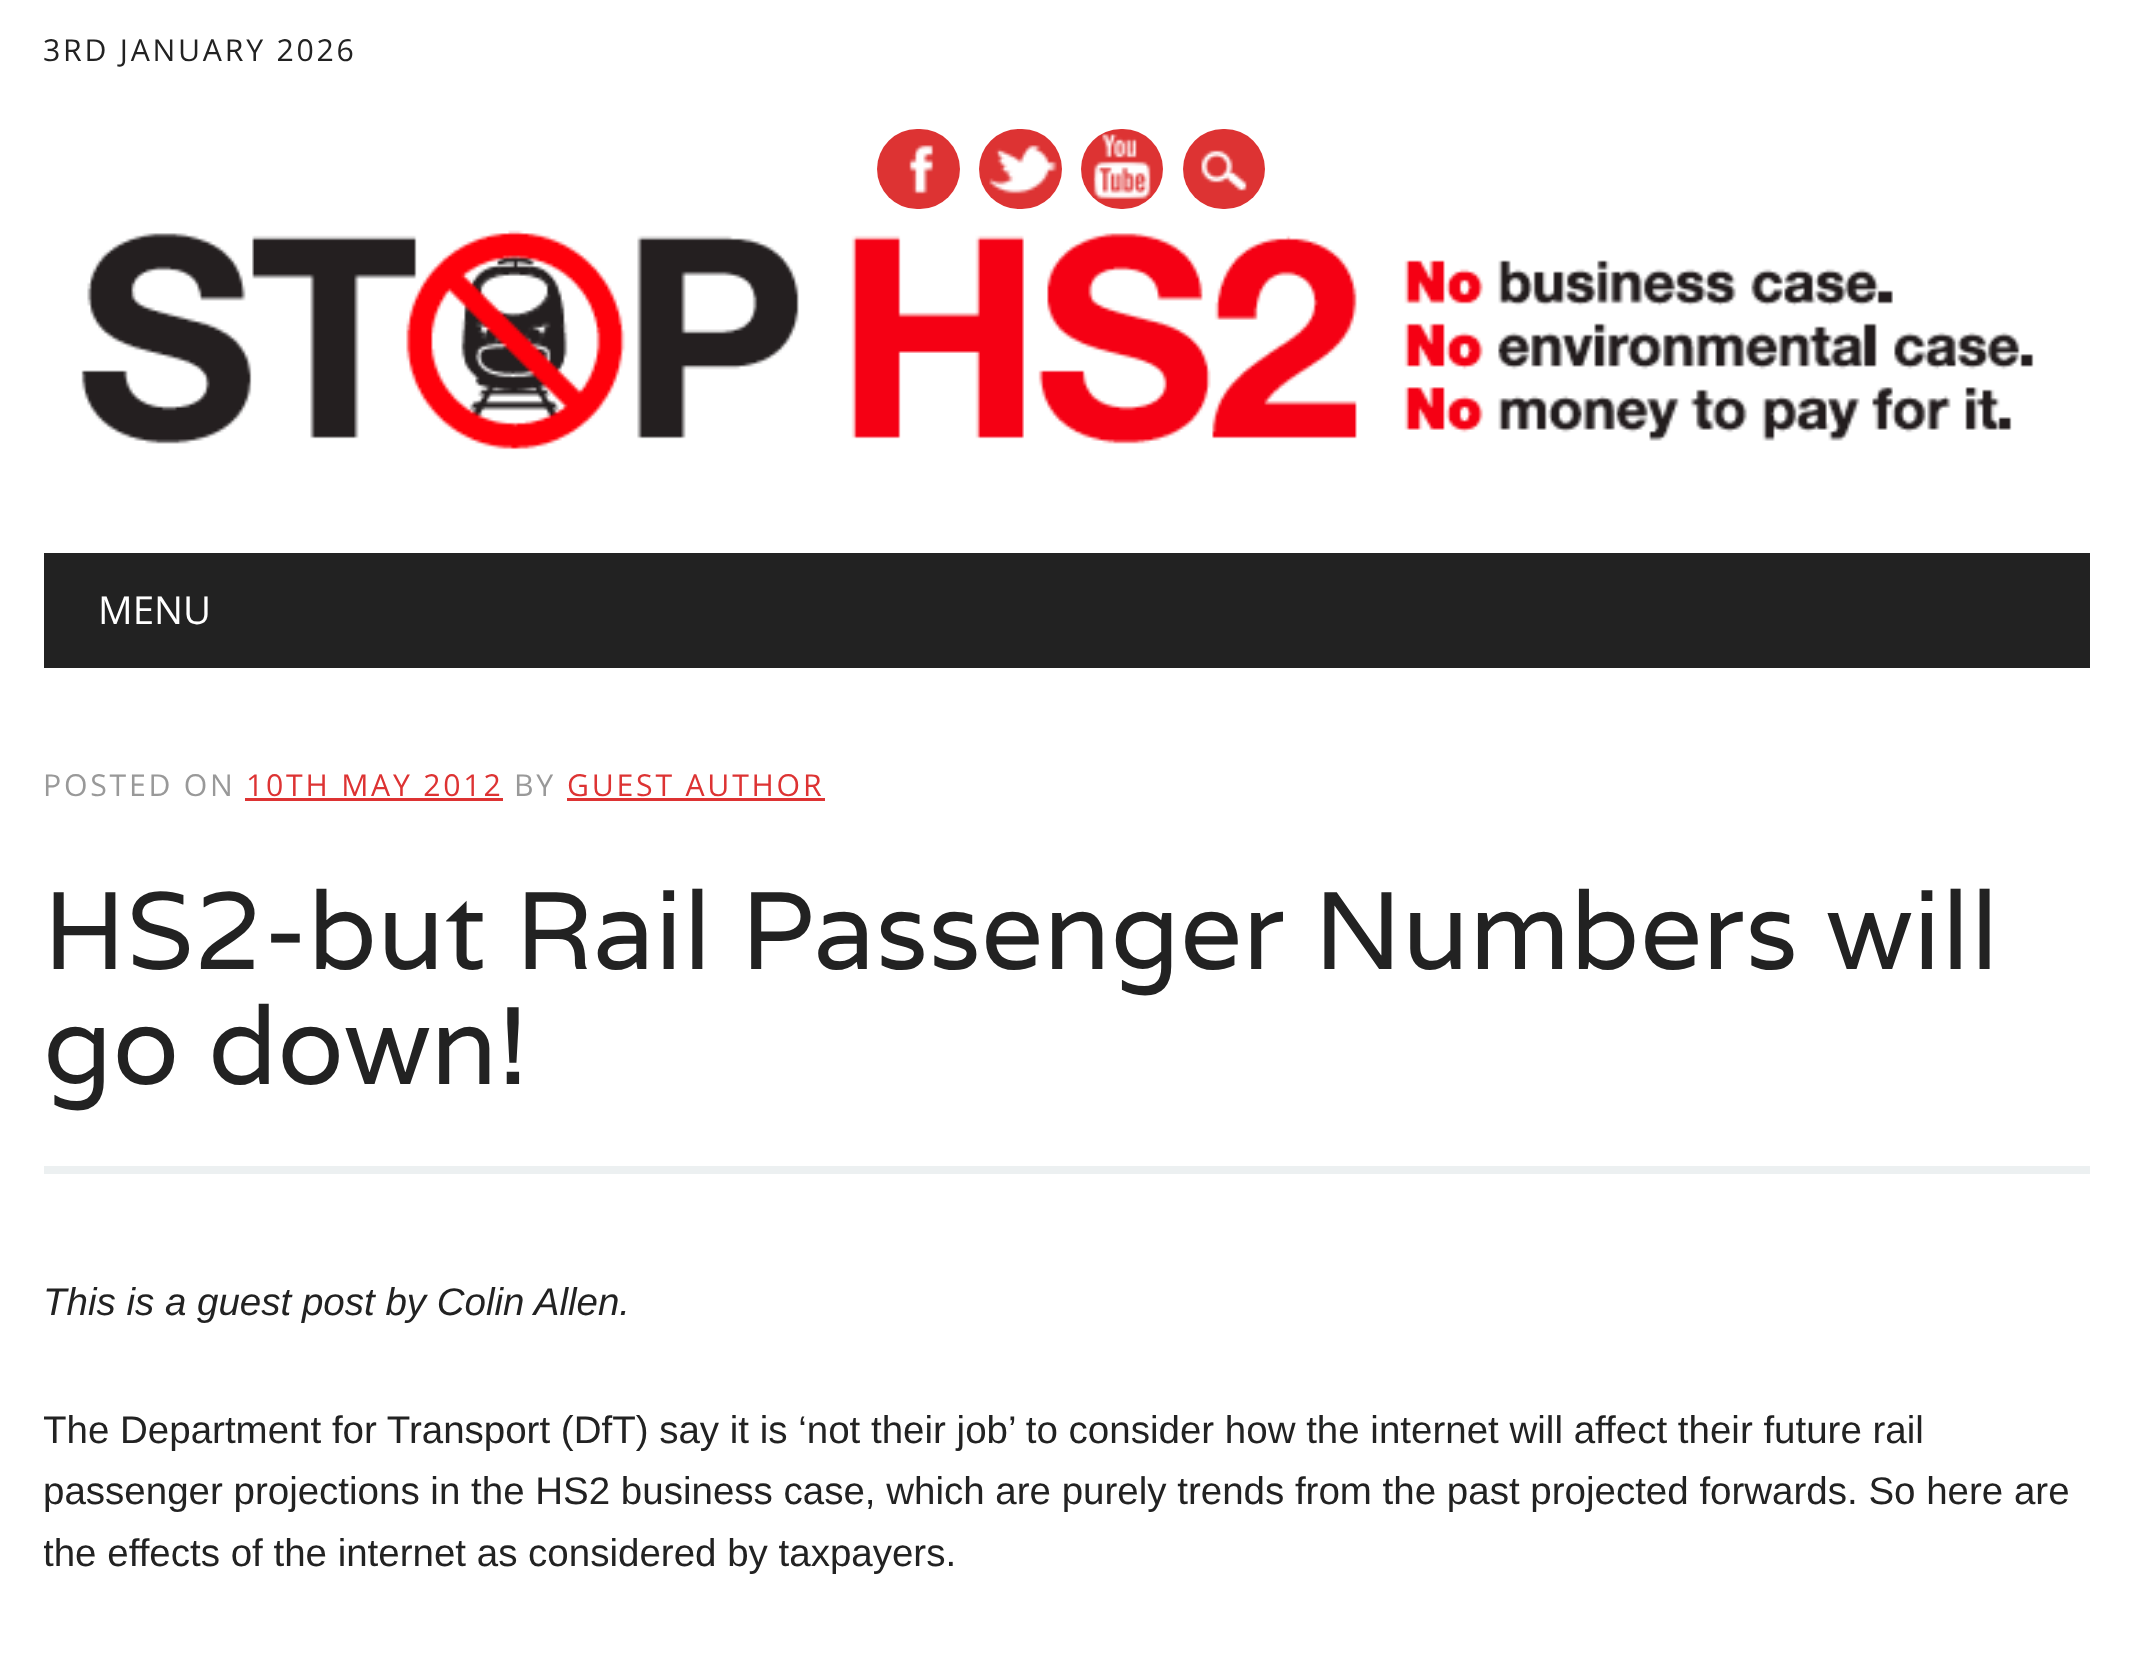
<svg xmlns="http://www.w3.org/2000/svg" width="2134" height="1664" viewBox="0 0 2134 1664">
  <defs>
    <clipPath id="clip1"><path d="M44 1271h2046v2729H44z"/></clipPath>
  </defs>
  <rect width="100%" height="100%" fill="#fff"/>
  <rect x="877" y="129" width="83" height="80" rx="40" fill="#d33"/>
  <image x="909" y="145" width="25" height="49" href="img/1.png"/>
  <rect x="979" y="129" width="83" height="80" rx="40" fill="#d33"/>
  <image x="989" y="145" width="68" height="49" href="img/2.png"/>
  <rect x="1081" y="129" width="82" height="80" rx="40" fill="#d33"/>
  <image x="1093" y="134" width="58" height="65" href="img/3.png"/>
  <rect x="1183" y="129" width="82" height="80" rx="40" fill="#d33"/>
  <image x="1201" y="150" width="46" height="41" href="img/4.png"/>
  <image x="81" y="230" width="1953" height="220" href="img/5.png"/>
  <path d="M44 553h2046v115H44z" fill="#222"/>
  <path d="M245 798h258v3H245z" fill="#d33"/>
  <path d="M567 798h258v3H567z" fill="#d33"/>
  <path d="M44 1166h2046v8H44z" fill="#ecf0f1"/>
  <text x="43" y="61" font-family="Open Sans" font-size="30.25" letter-spacing="2.75" fill="#222">3RD JANUARY 2026</text>
  <text x="98" y="624" font-family="Open Sans" font-size="38.5" fill="#fff">MENU</text>
  <text x="43" y="796" font-family="Open Sans" font-size="30.25" letter-spacing="2.75" fill="#999">POSTED ON</text>
  <text x="246" y="796" font-family="Open Sans" font-size="30.25" letter-spacing="2.75" fill="#d33">10TH MAY 2012</text>
  <text x="514" y="796" font-family="Open Sans" font-size="30.25" letter-spacing="2.75" fill="#999">BY</text>
  <text x="567" y="796" font-family="Open Sans" font-size="30.25" letter-spacing="2.75" fill="#d33">GUEST AUTHOR</text>
  <g font-family="Varela" font-size="110" fill="#222">
    <text x="43" y="969">HS2-but Rail Passenger Numbers will</text>
    <text x="43" y="1084">go down!</text>
  </g>
  <text x="43" y="1315" font-family="Liberation Sans" font-size="38.5" font-style="italic" fill="#222">This is a guest post by Colin Allen.</text>
  <g clip-path="url(#clip1)">
    <text x="43" y="1443" font-family="Liberation Sans" font-size="38.5" fill="#222">The Department for Transport (DfT) say it is ‘not their job’ to consider how the internet will affect their future rail</text>
  </g>
  <text x="43" y="1504" font-family="Liberation Sans" font-size="38.5" fill="#222">passenger projections in the HS2 business case, which are purely trends from the past projected forwards. So here are</text>
  <g clip-path="url(#clip1)">
    <text x="43" y="1566" font-family="Liberation Sans" font-size="38.5" fill="#222">the effects of the internet as considered by taxpayers.</text>
  </g>
</svg>
